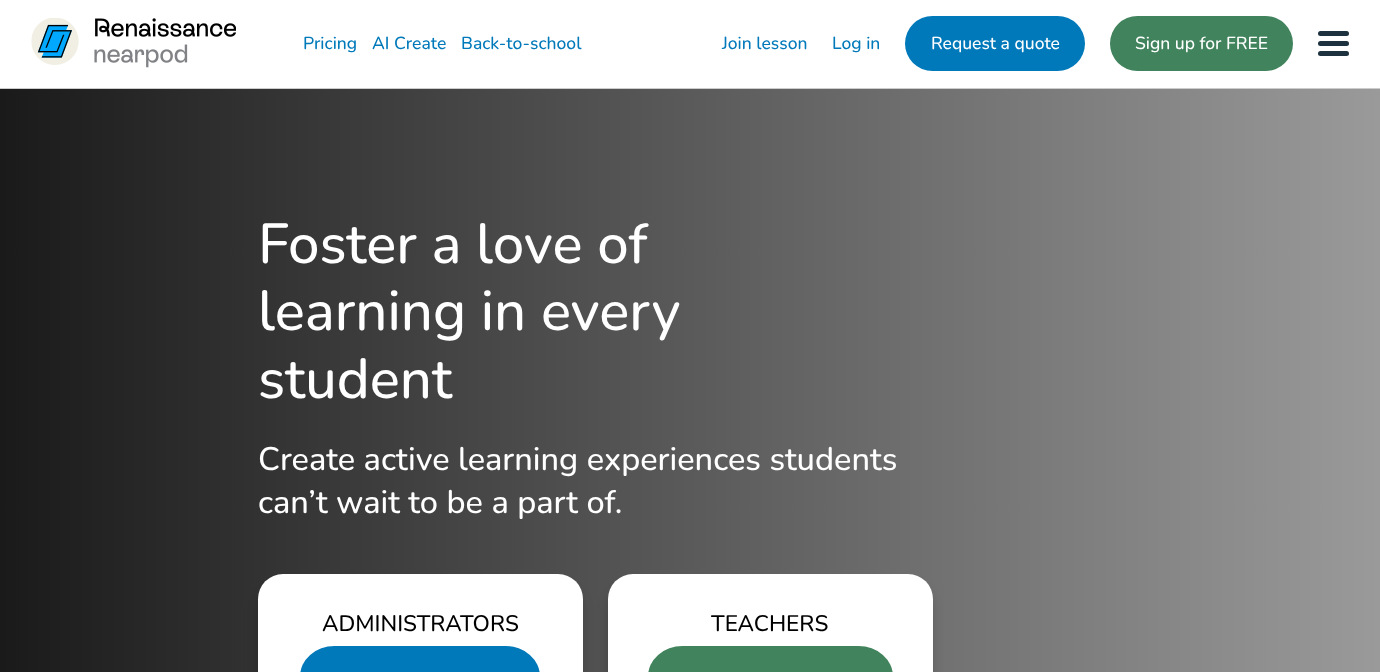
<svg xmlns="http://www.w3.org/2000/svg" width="1380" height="672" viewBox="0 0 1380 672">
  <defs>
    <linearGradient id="g1" gradientUnits="userSpaceOnUse" x1="0" y1="511" x2="1380" y2="511"><stop offset="0" stop-color="#1a1a1a"/><stop offset="1" stop-color="#9a9a9a"/></linearGradient>
  </defs>
  <rect width="100%" height="100%" fill="#fff"/>
  <path d="M0 88h1380v1H0z" fill="#ccc"/>
  <image x="31" y="18" width="205" height="50" href="img/1.png"/>
  <rect x="905" y="16" width="180" height="55" rx="27.5" fill="#0079ba"/>
  <rect x="1110" y="16" width="183" height="55" rx="27.5" fill="#40835c"/>
  <rect x="1318" y="31" width="31" height="5" rx="2.5" fill="#1d313e"/>
  <rect x="1318" y="41" width="31" height="5" rx="2.5" fill="#1d313e"/>
  <rect x="1318" y="51" width="31" height="5" rx="2.5" fill="#1d313e"/>
  <path d="M0 89h1380v583H0z" fill="url(#g1)"/>
  <rect x="258" y="585" width="325" height="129" rx="25" fill="#00000029" filter="blur(5.5px)"/>
  <rect x="258" y="574" width="325" height="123" rx="25" fill="#fff"/>
  <rect x="300" y="646" width="240" height="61" rx="34.5" fill="#0079ba"/>
  <rect x="608" y="585" width="325" height="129" rx="25" fill="#00000029" filter="blur(5.5px)"/>
  <rect x="608" y="574" width="325" height="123" rx="25" fill="#fff"/>
  <rect x="648" y="646" width="245" height="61" rx="34.5" fill="#40835c"/>
  <g font-family="Nunito" font-size="17.5" font-weight="500" fill="#0079ba">
    <text x="303" y="49">Pricing</text>
    <text x="372" y="49">AI Create</text>
    <text x="461" y="49">Back-to-school</text>
    <text x="722" y="49">Join lesson</text>
    <text x="832" y="49">Log in</text>
  </g>
  <g font-family="Nunito" font-size="17.5" font-weight="500" fill="#fff">
    <text x="931" y="49">Request a quote</text>
    <text x="1135" y="49">Sign up for FREE</text>
  </g>
  <g font-family="Nunito" font-size="56.25" font-weight="500" fill="#fff">
    <text x="258" y="263">Foster a love of</text>
    <text x="258" y="330">learning in every</text>
    <text x="258" y="398">student</text>
  </g>
  <g font-family="Nunito" font-size="32.5" font-weight="500" fill="#fff">
    <text x="258" y="470">Create active learning experiences students</text>
    <text x="258" y="513">can’t wait to be a part of.</text>
  </g>
  <g font-family="Nunito" font-size="22.5" font-weight="500" fill="#000">
    <text x="322" y="631">ADMINISTRATORS</text>
    <text x="711" y="631">TEACHERS</text>
  </g>
</svg>
